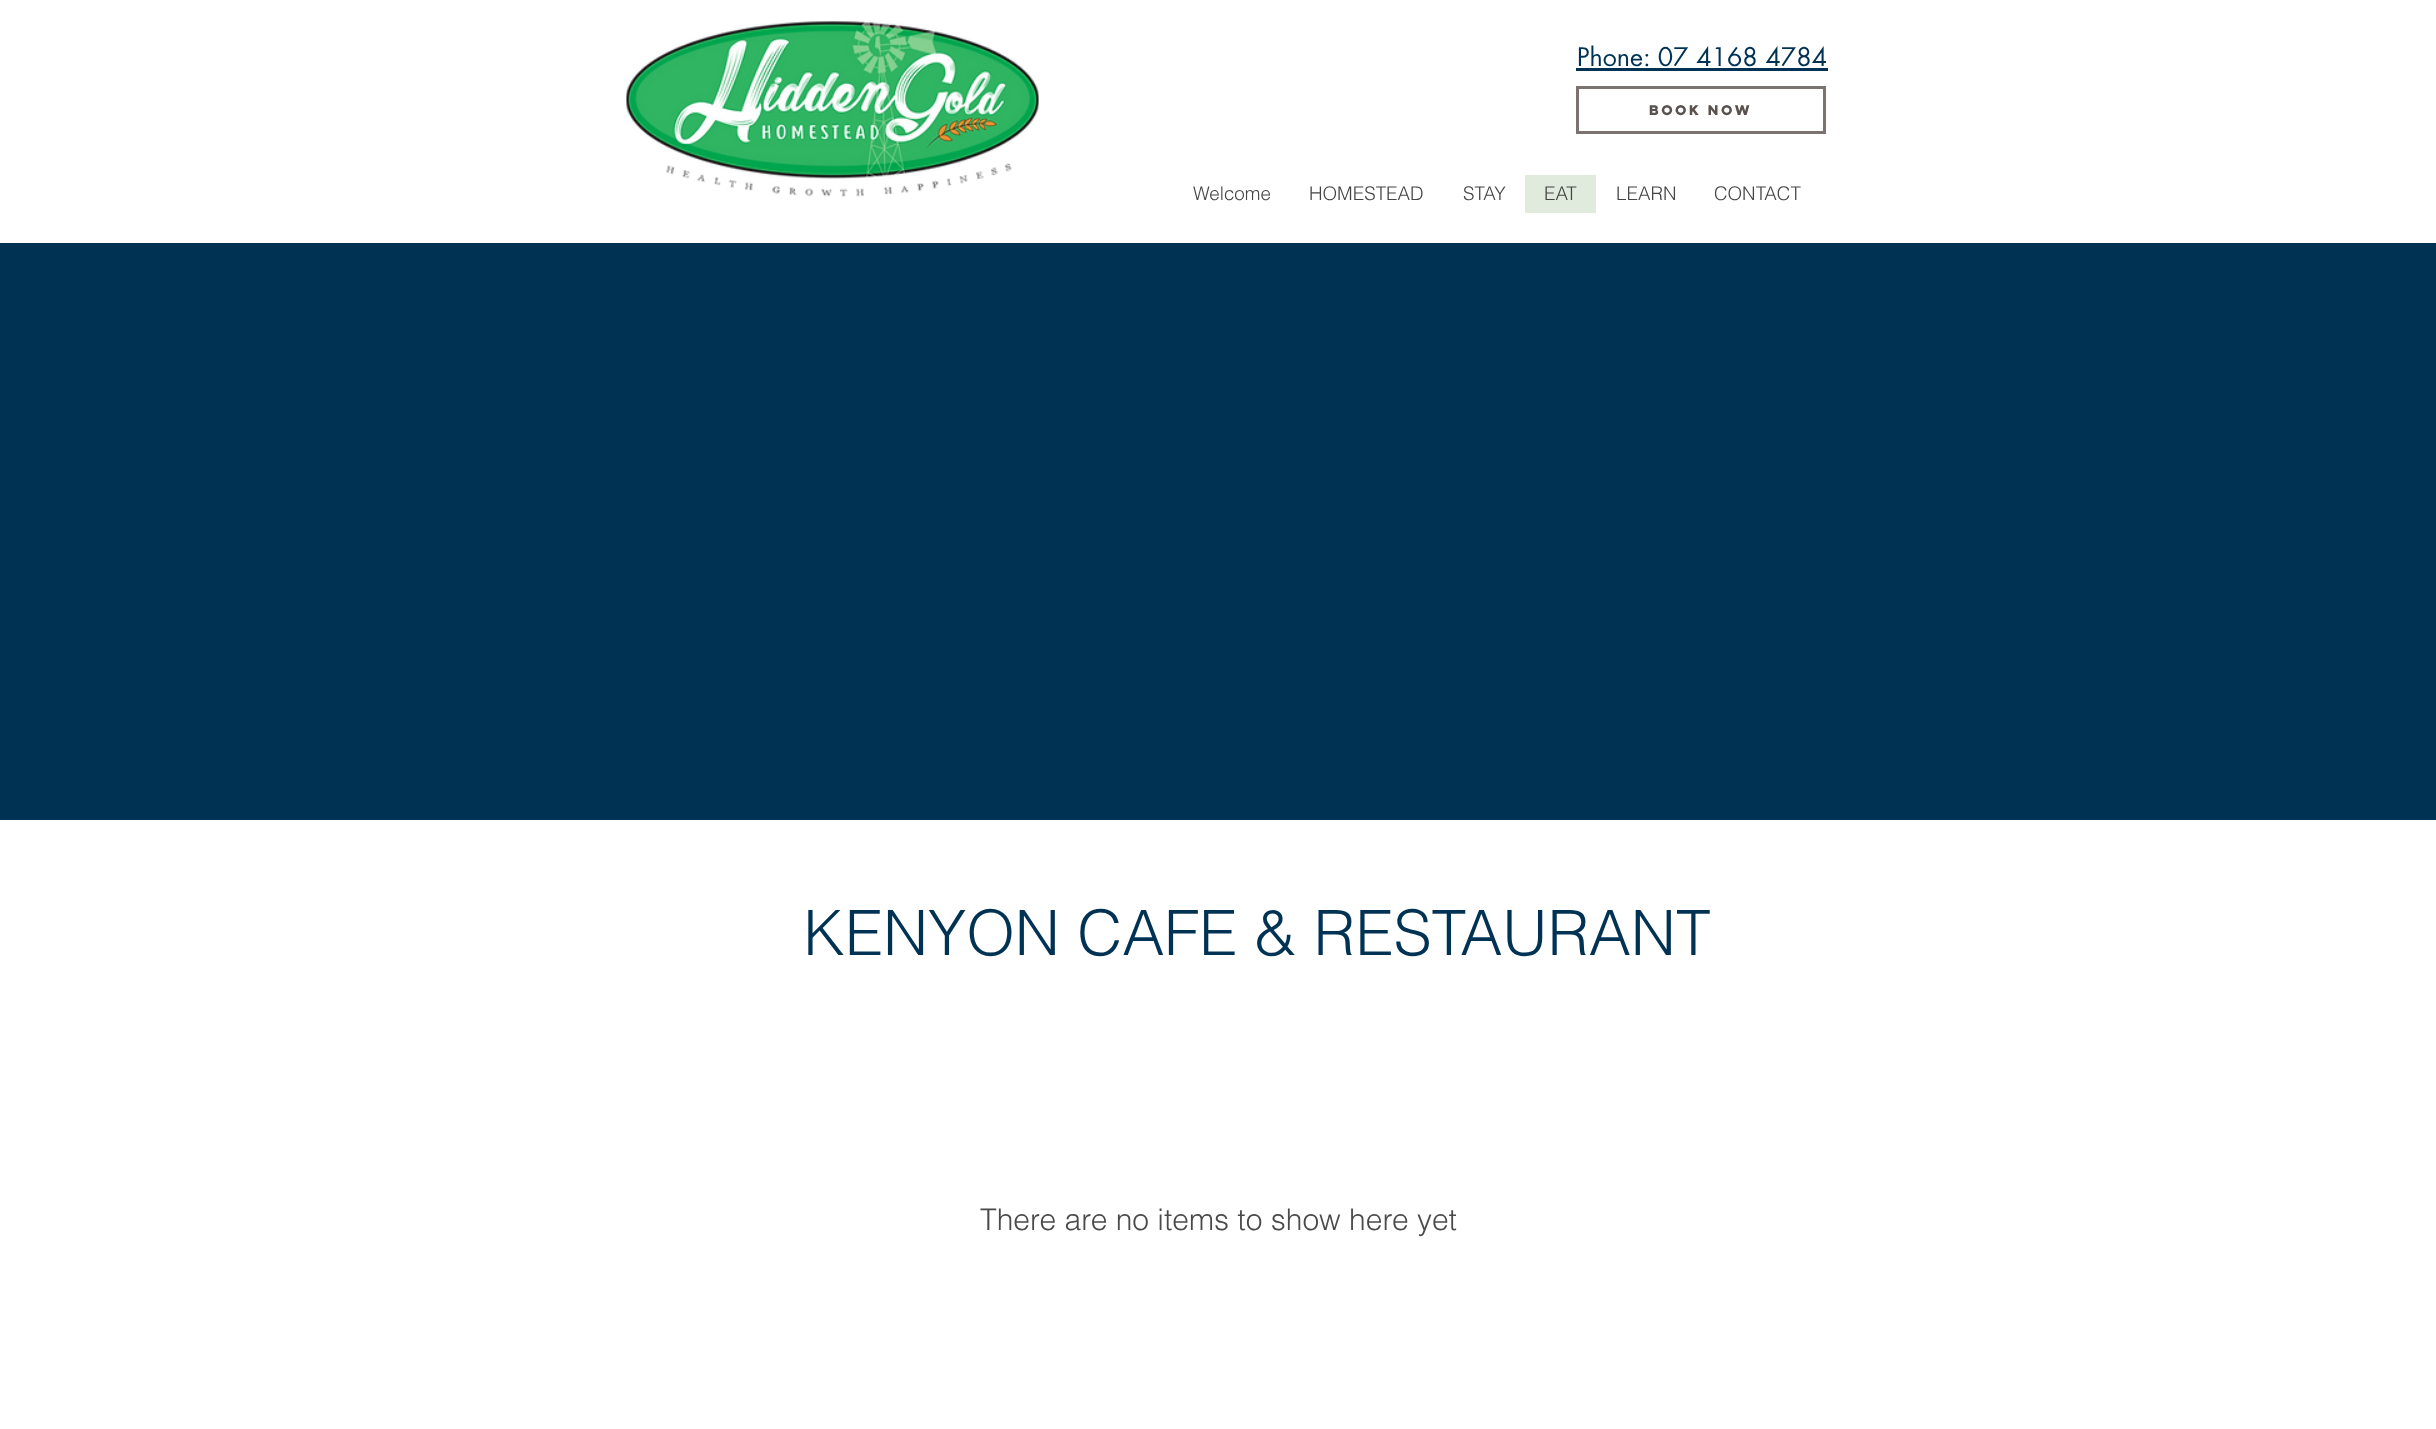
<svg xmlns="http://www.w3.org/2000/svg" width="2436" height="1429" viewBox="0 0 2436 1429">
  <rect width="100%" height="100%" fill="#fff"/>
  <image x="626" y="20" width="413" height="177" href="img/1.png"/>
  <path d="M1576 68h252v3H1576z" fill="#003254"/>
  <path d="M1577.5 87.5h247v45H1577.5z" fill="none" stroke="#7b736f" stroke-width="3"/>
  <path d="M1525 175h71v38H1525z" fill="#e0ebdd"/>
  <path d="M0 243h2436v577H0z" fill="#003254"/>
  <text x="1577" y="66" font-family="futura" font-size="25" fill="#003254">Phone: 07 4168 4784</text>
  <text x="1649" y="115" font-family="'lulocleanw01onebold'" font-size="12.5" font-weight="bold" fill="#59514d">Book Now</text>
  <g font-family="helvetica" font-size="18.75" font-weight="300" fill="#444">
    <text x="1193" y="200">Welcome</text>
    <text x="1309" y="200">HOMESTEAD</text>
    <text x="1463" y="200">STAY</text>
    <text x="1544" y="200">EAT</text>
    <text x="1616" y="200">LEARN</text>
    <text x="1714" y="200">CONTACT</text>
  </g>
  <text x="803" y="955" font-family="helvetica" font-size="62.5" font-weight="300" fill="#003254">KENYON CAFE &amp; RESTAURANT</text>
  <text x="980" y="1230" font-family="helvetica" font-size="30" font-weight="300" fill="#4a4a4a">There are no items to show here yet</text>
</svg>
